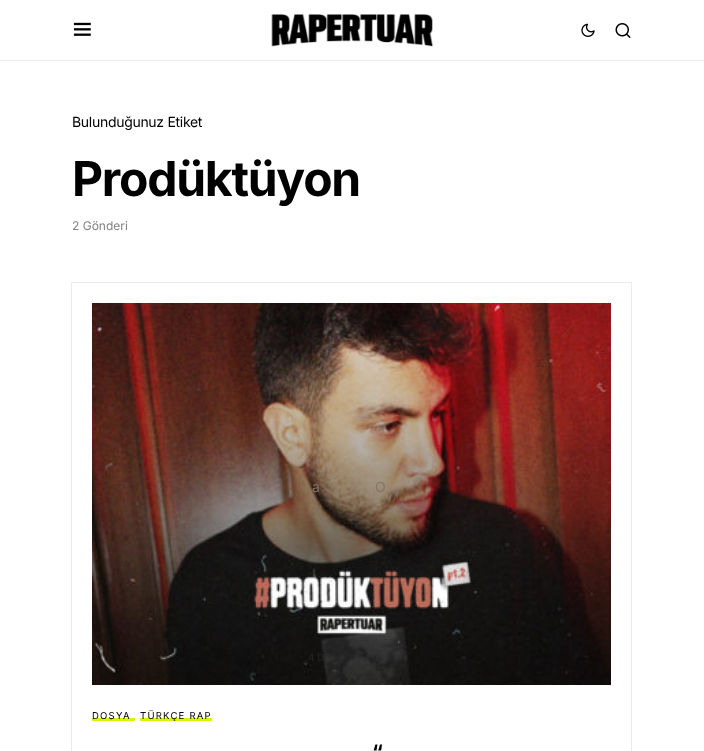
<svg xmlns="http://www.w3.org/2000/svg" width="704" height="751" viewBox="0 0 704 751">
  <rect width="100%" height="100%" fill="#fff"/>
  <path d="M0 60h704v1H0z" fill="#e9ecef"/>
  <image x="73" y="22" width="18" height="14" href="img/1.png"/>
  <image x="271" y="14" width="163" height="33" href="img/2.png"/>
  <image x="581" y="23" width="14" height="14" href="img/3.png"/>
  <image x="615" y="23" width="16" height="15" href="img/4.png"/>
  <path d="M71.5 282.5h560v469H71.5z" fill="none" stroke="#e9ecef"/>
  <image x="92" y="303" width="519" height="382" href="img/5.png"/>
  <path d="M92 718h43v3H92z" fill="#dbf402"/>
  <path d="M140 718h72v3H140z" fill="#dbf402"/>
  <text x="72" y="127" font-family="Inter" font-size="14" letter-spacing="-0.3" fill="#000">Bulunduğunuz Etiket</text>
  <text x="72" y="196" font-family="Inter" font-size="48" font-weight="bold" letter-spacing="-1.25" fill="#000">Prodüktüyon</text>
  <text x="72" y="230" font-family="Inter" font-size="12" fill="#818181">2 Gönderi</text>
  <g font-family="Inter" font-size="14" letter-spacing="-0.3" fill="#89745e">
    <text x="312" y="492">a</text>
    <text x="375" y="492">O</text>
  </g>
  <text x="308" y="661" font-family="Inter" font-size="10" fill="#262525">4 D</text>
  <g font-family="Inter" font-size="9.5" letter-spacing="1.25" fill="#000">
    <text x="92" y="719">DOSYA</text>
    <text x="140" y="719">TÜRKÇE RAP</text>
  </g>
  <text x="372" y="759" font-family="Inter" font-size="20" font-weight="bold" fill="#000">“</text>
</svg>
